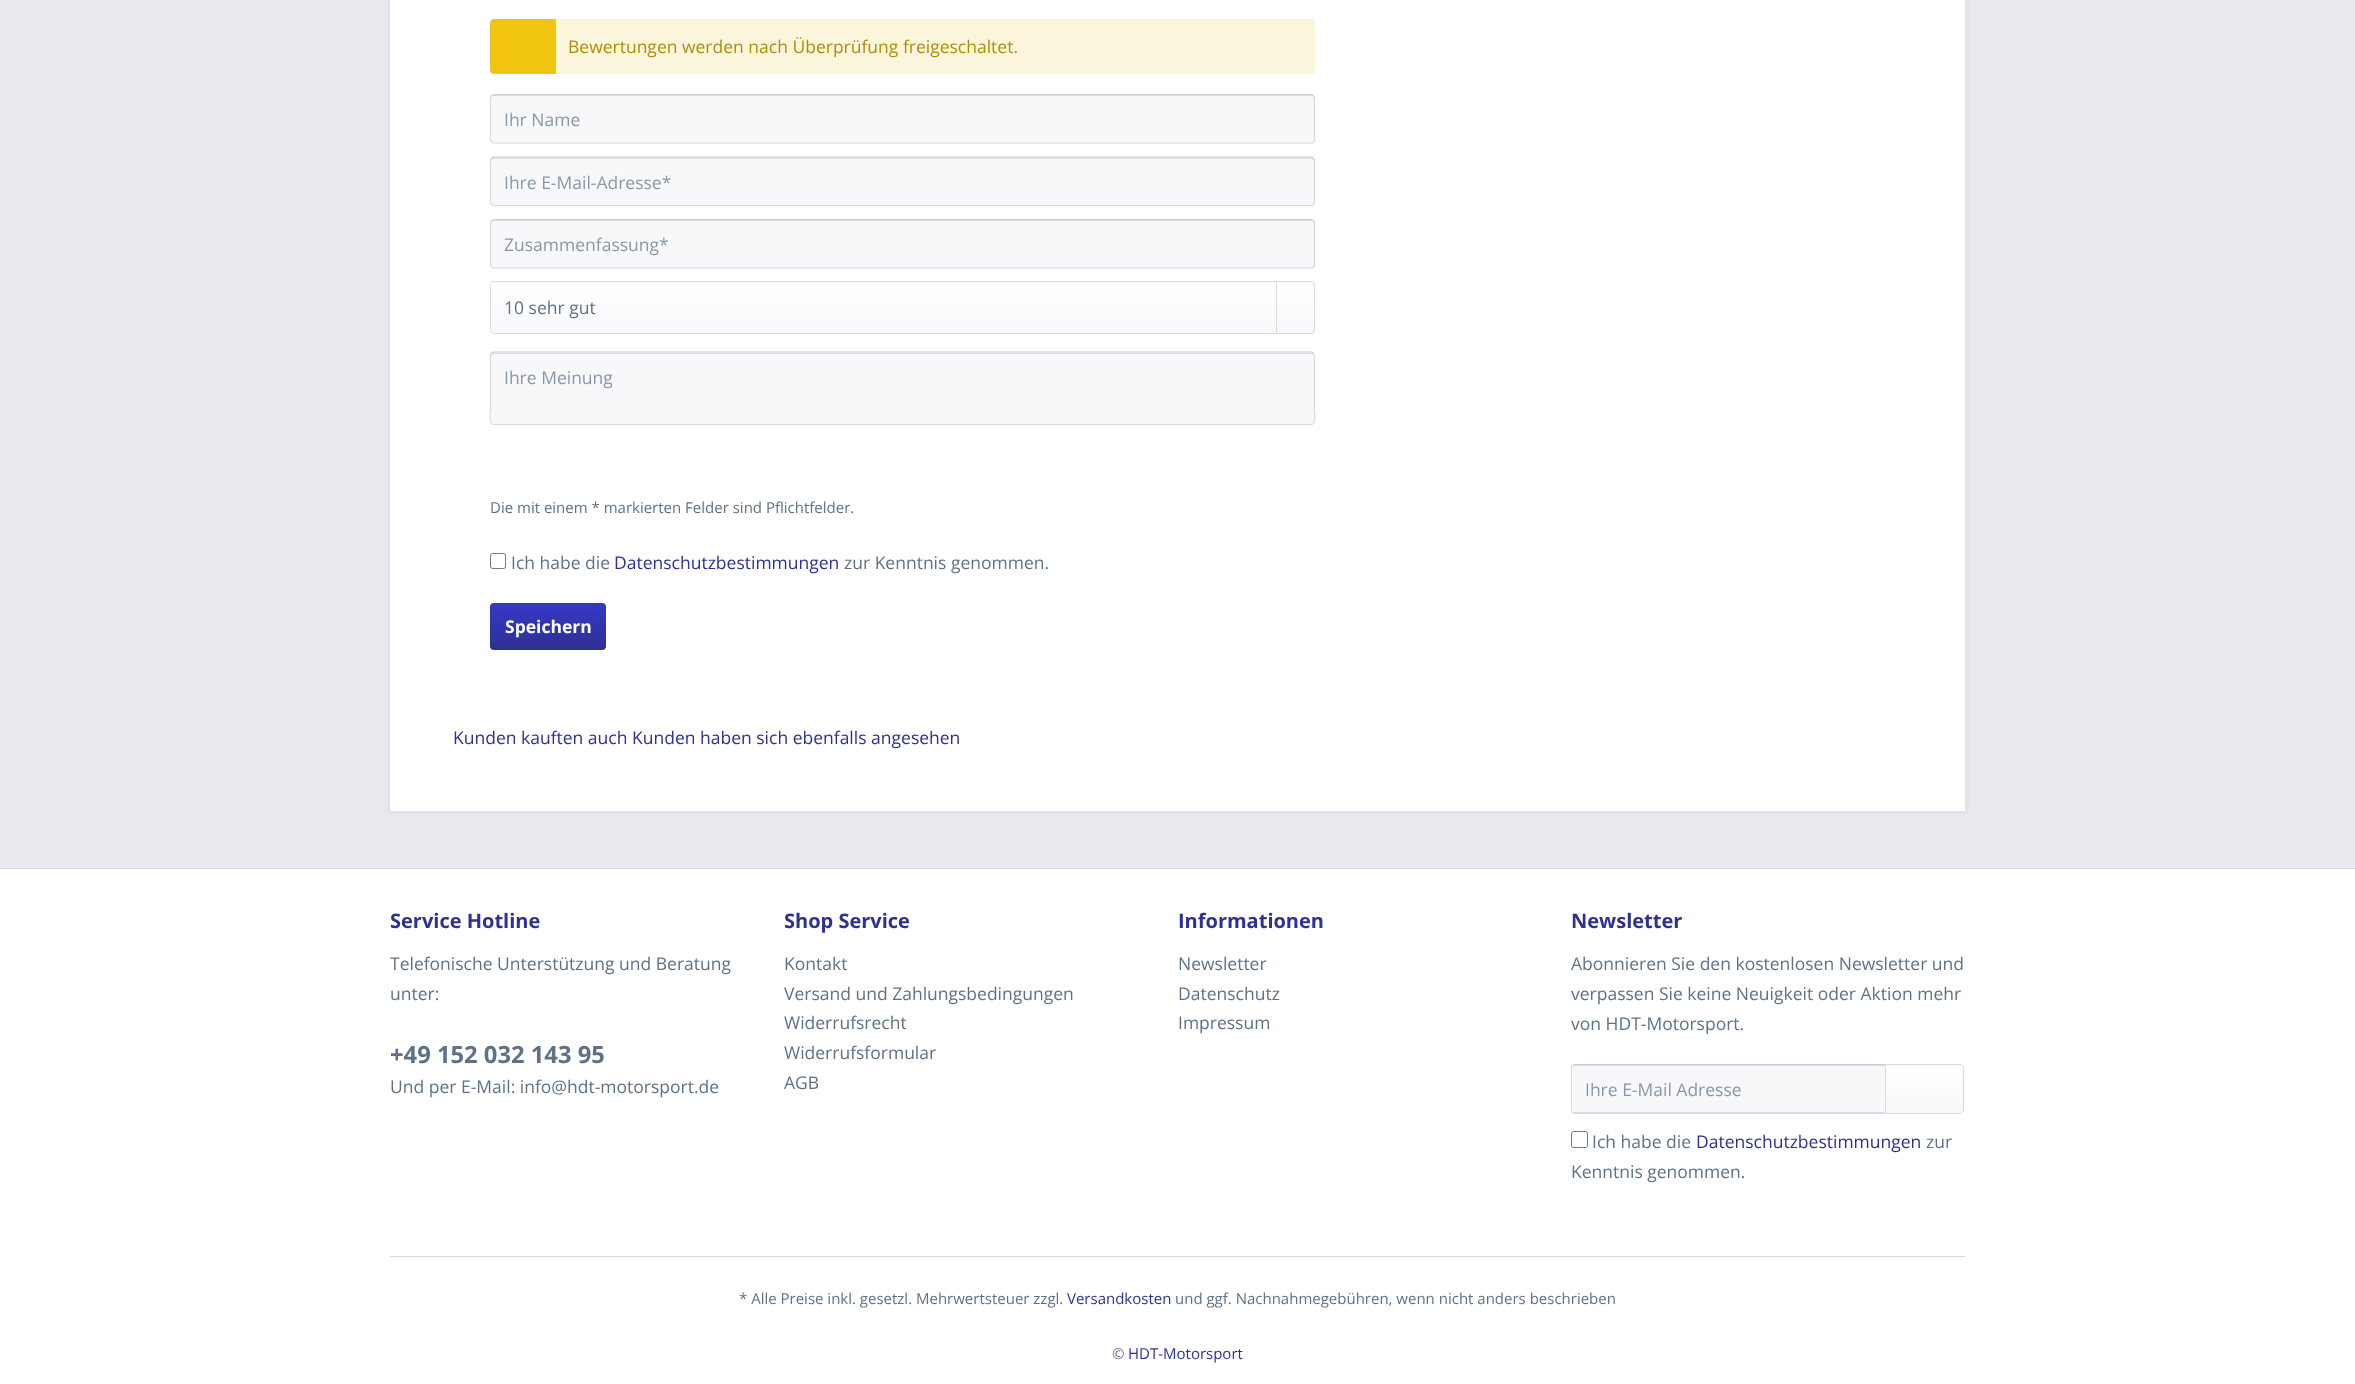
<svg xmlns="http://www.w3.org/2000/svg" width="2355" height="1384" viewBox="0 0 2355 1384">
  <defs>
    <linearGradient id="g1" gradientUnits="userSpaceOnUse" x1="903" y1="282" x2="903" y2="333"><stop offset="0" stop-color="#fff"/><stop offset="1" stop-color="#f8f8fa"/></linearGradient>
    <linearGradient id="g2" gradientUnits="userSpaceOnUse" x1="548" y1="603" x2="548" y2="650"><stop offset="0" stop-color="#3639c7"/><stop offset="1" stop-color="#2e3092"/></linearGradient>
    <linearGradient id="g3" gradientUnits="userSpaceOnUse" x1="1924" y1="1065" x2="1924" y2="1113"><stop offset="0" stop-color="#fff"/><stop offset="1" stop-color="#f8f8fa"/></linearGradient>
  </defs>
  <rect width="100%" height="100%" fill="#e9e9f0"/>
  <path d="M389 -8h1577v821H389z" fill="#dadae5" filter="blur(2.5px)"/>
  <path d="M390 0h1575v811H390z" fill="#fff"/>
  <rect x="490" y="19" width="825" height="55" rx="4" fill="#fbf5db"/>
  <path d="M494 19H556V74H494C492 74 490 72 490 70V23C490 21 492 19 494 19Z" fill="#f1c40f"/>
  <rect x="490" y="94" width="825" height="50" rx="4" fill="#f8f8fa"/>
  <path d="M494 96H1311C1313 96 1314 97 1314 99V98C1314 96 1313 95 1312 95H494C492 95 491 96 491 98V99C491 97 492 96 494 96Z" fill="#dadae5"/>
  <path d="M491.5 95.5L494 94.5H1311L1313.5 95.5" fill="none" stroke="#cbcbdb" stroke-width="1.2"/>
  <path d="M1313.5 95.5L1314.5 97.5V140L1313.5 142L1311 143H494L491.5 142L490.5 140V97.5L491.5 95.5" fill="none" stroke="#dadae5" stroke-width="1.2"/>
  <rect x="490" y="156" width="825" height="50" rx="4" fill="#f8f8fa"/>
  <path d="M494 159H1311C1313 159 1314 160 1314 161V160C1314 159 1313 158 1312 158H494C492 158 491 159 491 160V161C491 160 492 159 494 159Z" fill="#dadae5"/>
  <path d="M491.5 158L494 157H1311L1313.5 158" fill="none" stroke="#cbcbdb" stroke-width="1.2"/>
  <path d="M1313.5 158L1314.5 160V202.5L1313.5 204.5L1311 205.5H494L491.5 204.5L490.5 202.5V160L491.5 158" fill="none" stroke="#dadae5" stroke-width="1.2"/>
  <rect x="490" y="219" width="825" height="50" rx="4" fill="#f8f8fa"/>
  <path d="M494 221H1311C1313 221 1314 222 1314 224V222C1314 221 1313 220 1312 220H494C492 220 491 221 491 222V224C491 222 492 221 494 221Z" fill="#dadae5"/>
  <path d="M491.5 220.5L494 219.5H1311L1313.5 220.5" fill="none" stroke="#cbcbdb" stroke-width="1.2"/>
  <path d="M1313.5 220.5L1314.5 222.5V265L1313.5 267L1311 268H494L491.5 267L490.5 265V222.5L491.5 220.5" fill="none" stroke="#dadae5" stroke-width="1.2"/>
  <rect x="491" y="283" width="823" height="50" rx="2.5" fill="url(#g1)"/>
  <rect x="490.5" y="281.5" width="824" height="52" rx="3.5" fill="none" stroke="#dadae5"/>
  <path d="M1276 283h1v50H1276z" fill="#dadae5"/>
  <rect x="490" y="351" width="825" height="74" rx="4" fill="#f8f8fa"/>
  <path d="M494 354H1311C1313 354 1314 355 1314 356C1314 354 1313 353 1312 353H494C492 353 491 354 491 356C491 355 492 354 494 354Z" fill="#dadae5"/>
  <path d="M491.5 353L494 352H1311L1313.5 353" fill="none" stroke="#cbcbdb" stroke-width="1.2"/>
  <path d="M1313.5 353L1314.5 355V410C1314.5 410.5 1317 424.5 1311 424.5H494C488 424.5 490.5 410.5 490.5 410V355L491.5 353" fill="none" stroke="#dadae5" stroke-width="1.2"/>
  <rect x="490.5" y="553.5" width="15" height="15" rx="2" fill="none" stroke="#767676"/>
  <rect x="490" y="603" width="116" height="47" rx="4" fill="url(#g2)"/>
  <path d="M0 869h2355v515H0z" fill="#fff"/>
  <path d="M0 868h2355v1H0z" fill="#dadae5"/>
  <path d="M390 1256h1575v1H390z" fill="#dadae5"/>
  <path d="M1575.5 1065H1885V1113H1575.5C1574 1113 1573 1112 1573 1110.5V1067.5C1573 1066 1574 1065 1575.5 1065Z" fill="#f8f8fa"/>
  <path d="M1575 1066H1885V1065H1576C1574 1065 1573 1066 1573 1067Z" fill="#dadae5"/>
  <path d="M1575 1064L1572 1065L1573 1066L1575 1065H1885L1886 1064Z" fill="#cbcbdb"/>
  <path d="M1574 1114L1572 1113L1573 1112H1575H1884L1886 1114Z" fill="#dadae5"/>
  <path d="M1571 1066L1572 1065L1573 1066L1572 1068V1110L1573 1112L1572 1113L1571 1111Z" fill="#dadae5"/>
  <path d="M1886 1065H1960.5C1962 1065 1963 1066 1963 1067.5V1110.5C1963 1112 1962 1113 1960.5 1113H1886Z" fill="url(#g3)"/>
  <path d="M1885.5 1064.5H1960C1962 1064.5 1963.5 1066 1963.5 1068V1110C1963.5 1112 1962 1113.5 1960 1113.5H1885.5Z" fill="none" stroke="#dadae5"/>
  <rect x="1571.5" y="1131.5" width="16" height="16" rx="2" fill="none" stroke="#767676"/>
  <text x="568" y="53" font-family="Open Sans" font-size="17.5" fill="#ae8e0a">Bewertungen werden nach Überprüfung freigeschaltet.</text>
  <g font-family="Open Sans" font-size="17.5" fill="#8798a9">
    <text x="504" y="126">Ihr Name</text>
    <text x="504" y="189">Ihre E-Mail-Adresse*</text>
    <text x="504" y="251">Zusammenfassung*</text>
  </g>
  <text x="504" y="314" font-family="Open Sans" font-size="17.5" fill="#5f7285">10 sehr gut</text>
  <text x="504" y="384" font-family="Open Sans" font-size="17.5" fill="#8798a9">Ihre Meinung</text>
  <text x="490" y="513" font-family="Open Sans" font-size="15" fill="#5f7285">Die mit einem * markierten Felder sind Pflichtfelder.</text>
  <text x="511" y="569" font-family="Open Sans" font-size="17.5" fill="#5f7285">Ich habe die</text>
  <text x="614" y="569" font-family="Open Sans" font-size="17.5" fill="#2e3092">Datenschutzbestimmungen</text>
  <text x="844" y="569" font-family="Open Sans" font-size="17.5" fill="#5f7285">zur Kenntnis genommen.</text>
  <text x="505" y="633" font-family="Open Sans" font-size="17.5" font-weight="bold" fill="#fff">Speichern</text>
  <text x="453" y="744" font-family="Open Sans" font-size="17.5" fill="#2e3092">Kunden kauften auch Kunden haben sich ebenfalls angesehen</text>
  <text x="390" y="928" font-family="Open Sans" font-size="20" font-weight="bold" fill="#2e3092">Service Hotline</text>
  <g font-family="Open Sans" font-size="17.5" fill="#5f7285">
    <text x="390" y="970">Telefonische Unterstützung und Beratung</text>
    <text x="390" y="1000">unter:</text>
  </g>
  <text x="390" y="1063" font-family="Open Sans" font-size="23.75" font-weight="bold" fill="#5f7285">+49 152 032 143 95</text>
  <text x="390" y="1093" font-family="Open Sans" font-size="17.5" fill="#5f7285">Und per E-Mail: info@hdt-motorsport.de</text>
  <text x="784" y="928" font-family="Open Sans" font-size="20" font-weight="bold" fill="#2e3092">Shop Service</text>
  <g font-family="Open Sans" font-size="17.5" fill="#5f7285">
    <text x="784" y="970">Kontakt</text>
    <text x="784" y="1000">Versand und Zahlungsbedingungen</text>
    <text x="784" y="1029">Widerrufsrecht</text>
    <text x="784" y="1059">Widerrufsformular</text>
    <text x="784" y="1089">AGB</text>
  </g>
  <text x="1178" y="928" font-family="Open Sans" font-size="20" font-weight="bold" fill="#2e3092">Informationen</text>
  <g font-family="Open Sans" font-size="17.5" fill="#5f7285">
    <text x="1178" y="970">Newsletter</text>
    <text x="1178" y="1000">Datenschutz</text>
    <text x="1178" y="1029">Impressum</text>
  </g>
  <text x="1571" y="928" font-family="Open Sans" font-size="20" font-weight="bold" fill="#2e3092">Newsletter</text>
  <g font-family="Open Sans" font-size="17.5" fill="#5f7285">
    <text x="1571" y="970">Abonnieren Sie den kostenlosen Newsletter und</text>
    <text x="1571" y="1000">verpassen Sie keine Neuigkeit oder Aktion mehr</text>
    <text x="1571" y="1030">von HDT-Motorsport.</text>
  </g>
  <text x="1585" y="1096" font-family="Open Sans" font-size="17.5" fill="#8798a9">Ihre E-Mail Adresse</text>
  <text x="1592" y="1148" font-family="Open Sans" font-size="17.5" fill="#5f7285">Ich habe die</text>
  <text x="1696" y="1148" font-family="Open Sans" font-size="17.5" fill="#2e3092">Datenschutzbestimmungen</text>
  <g font-family="Open Sans" font-size="17.5" fill="#5f7285">
    <text x="1926" y="1148">zur</text>
    <text x="1571" y="1178">Kenntnis genommen.</text>
  </g>
  <text x="739" y="1304" font-family="Open Sans" font-size="15" fill="#5f7285">* Alle Preise inkl. gesetzl. Mehrwertsteuer zzgl.</text>
  <text x="1067" y="1304" font-family="Open Sans" font-size="15" fill="#2e3092">Versandkosten</text>
  <g font-family="Open Sans" font-size="15" fill="#5f7285">
    <text x="1175" y="1304">und ggf. Nachnahmegebühren, wenn nicht anders beschrieben</text>
    <text x="1112" y="1359">©</text>
  </g>
  <text x="1128" y="1359" font-family="Open Sans" font-size="15" fill="#2e3092">HDT-Motorsport</text>
</svg>
